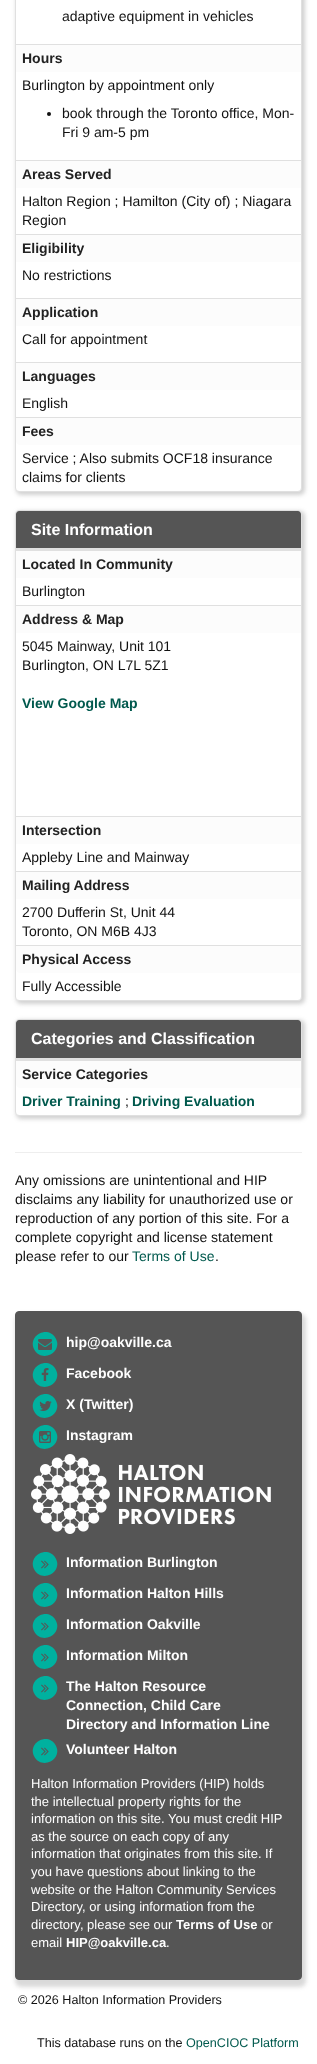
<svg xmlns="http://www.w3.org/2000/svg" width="317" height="2064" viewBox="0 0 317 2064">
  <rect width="100%" height="100%" fill="#fff"/>
  <rect x="16" y="-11" width="289" height="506" rx="5" fill="#6666664d" filter="blur(2px)"/>
  <rect x="15.5" y="-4.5" width="286" height="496" rx="3.5" fill="#fff" stroke="#e0e0e0"/>
  <path d="M16 45h285v27H16z" fill="#fcfcfc"/>
  <path d="M16 44h285v1H16z" fill="#e0e0e0"/>
  <circle cx="49" cy="114" r="2" fill="#111"/>
  <path d="M16 161h285v27H16z" fill="#fcfcfc"/>
  <path d="M16 160h285v1H16z" fill="#e0e0e0"/>
  <path d="M16 235h285v27H16z" fill="#fcfcfc"/>
  <path d="M16 234h285v1H16z" fill="#e0e0e0"/>
  <path d="M16 299h285v27H16z" fill="#fcfcfc"/>
  <path d="M16 298h285v1H16z" fill="#e0e0e0"/>
  <path d="M16 363h285v27H16z" fill="#fcfcfc"/>
  <path d="M16 362h285v1H16z" fill="#e0e0e0"/>
  <path d="M16 417H301V445H20C18 445 16 443 16 441Z" fill="#fcfcfc"/>
  <path d="M16 417h285v1H16z" fill="#e0e0e0"/>
  <rect x="16" y="511" width="289" height="493" rx="5" fill="#6666664d" filter="blur(2px)"/>
  <rect x="15.5" y="510.5" width="286" height="490" rx="3.5" fill="#fff" stroke="#e0e0e0"/>
  <path d="M19 511H298C299.5 511 301 512.5 301 514V549H16V514C16 512.5 17.5 511 19 511Z" fill="#555"/>
  <path d="M16 548h285v3H16z" fill="#e0e0e0"/>
  <path d="M16 551h285v27H16z" fill="#fcfcfc"/>
  <path d="M16 606h285v27H16z" fill="#fcfcfc"/>
  <path d="M16 605h285v1H16z" fill="#e0e0e0"/>
  <path d="M16 817h285v27H16z" fill="#fcfcfc"/>
  <path d="M16 816h285v1H16z" fill="#e0e0e0"/>
  <path d="M16 872h285v27H16z" fill="#fcfcfc"/>
  <path d="M16 871h285v1H16z" fill="#e0e0e0"/>
  <path d="M16 945H301V973H20C18 973 16 971 16 969Z" fill="#fcfcfc"/>
  <path d="M16 945h285v1H16z" fill="#e0e0e0"/>
  <rect x="16" y="1020" width="289" height="99" rx="5" fill="#6666664d" filter="blur(2px)"/>
  <rect x="15.5" y="1019.5" width="286" height="96" rx="3.5" fill="#fff" stroke="#e0e0e0"/>
  <path d="M19 1020H298C299.5 1020 301 1021.5 301 1023V1059H16V1023C16 1021.5 17.5 1020 19 1020Z" fill="#555"/>
  <path d="M16 1058h285v2H16z" fill="#e0e0e0"/>
  <path d="M16 1060H301V1088H20C18 1088 16 1086 16 1084Z" fill="#fcfcfc"/>
  <path d="M16 1060h285v1H16z" fill="#e0e0e0"/>
  <path d="M15 1152h287v1H15z" fill="#eee"/>
  <rect x="15" y="1314" width="291" height="673" rx="6" fill="#66666640" filter="blur(2px)"/>
  <rect x="15.5" y="1311.5" width="286" height="668" rx="3.5" fill="#555" stroke="#555"/>
  <path d="M55.5 1338C63.5 1351.5 42.5 1363.5 34.5 1350C26.5 1336.5 47.5 1324.5 55.5 1338Z" fill="#00b19f"/>
  <image x="38" y="1339" width="14" height="11" href="img/1.png"/>
  <path d="M55.5 1369C63.5 1382.5 42.5 1394.5 34.5 1381C26.5 1367.5 47.5 1355.5 55.5 1369Z" fill="#00b19f"/>
  <image x="41" y="1368" width="8" height="13" href="img/2.png"/>
  <path d="M55.5 1400C63.5 1413.5 42.5 1425.5 34.5 1412C26.5 1398.5 47.5 1386.5 55.5 1400Z" fill="#00b19f"/>
  <image x="39" y="1401" width="13" height="10" href="img/3.png"/>
  <path d="M55.5 1431C63.5 1444.5 42.5 1456.5 34.5 1443C26.5 1429.5 47.5 1417.5 55.5 1431Z" fill="#00b19f"/>
  <image x="39" y="1431" width="12" height="12" href="img/4.png"/>
  <image x="31" y="1454" width="240" height="80" href="img/5.png"/>
  <path d="M55.5 1558C63.5 1571.5 42.5 1583.5 34.5 1570C26.5 1556.5 47.5 1544.5 55.5 1558Z" fill="#00b19f"/>
  <image x="41" y="1560" width="8" height="9" href="img/6.png"/>
  <path d="M55.5 1589C63.5 1602.5 42.5 1614.5 34.5 1601C26.5 1587.5 47.5 1575.5 55.5 1589Z" fill="#00b19f"/>
  <image x="41" y="1591" width="8" height="9" href="img/6.png"/>
  <path d="M55.5 1620C63.5 1633.5 42.5 1645.5 34.5 1632C26.5 1618.5 47.5 1606.5 55.5 1620Z" fill="#00b19f"/>
  <image x="41" y="1622" width="8" height="9" href="img/6.png"/>
  <path d="M55.5 1651C63.5 1664.5 42.5 1676.5 34.5 1663C26.5 1649.5 47.5 1637.5 55.5 1651Z" fill="#00b19f"/>
  <image x="41" y="1653" width="8" height="9" href="img/6.png"/>
  <path d="M55.5 1682C63.5 1695.5 42.5 1707.5 34.5 1694C26.5 1680.5 47.5 1668.5 55.5 1682Z" fill="#00b19f"/>
  <image x="41" y="1684" width="8" height="9" href="img/6.png"/>
  <path d="M55.5 1745C63.5 1758.5 42.5 1770.5 34.5 1757C26.5 1743.5 47.5 1731.5 55.5 1745Z" fill="#00b19f"/>
  <image x="41" y="1747" width="8" height="9" href="img/6.png"/>
  <text x="62" y="21" font-family="Liberation Sans" font-size="14" fill="#111">adaptive equipment in vehicles</text>
  <text x="22" y="63" font-family="Liberation Sans" font-size="14" font-weight="bold" fill="#222">Hours</text>
  <g font-family="Liberation Sans" font-size="14" fill="#111">
    <text x="22" y="90">Burlington by appointment only</text>
    <text x="62" y="118">book through the Toronto office, Mon-</text>
    <text x="62" y="137">Fri 9 am-5 pm</text>
  </g>
  <text x="22" y="179" font-family="Liberation Sans" font-size="14" font-weight="bold" fill="#222">Areas Served</text>
  <g font-family="Liberation Sans" font-size="14" fill="#111">
    <text x="22" y="206">Halton Region ; Hamilton (City of) ; Niagara</text>
    <text x="22" y="225">Region</text>
  </g>
  <text x="22" y="253" font-family="Liberation Sans" font-size="14" font-weight="bold" fill="#222">Eligibility</text>
  <text x="22" y="280" font-family="Liberation Sans" font-size="14" fill="#111">No restrictions</text>
  <text x="22" y="317" font-family="Liberation Sans" font-size="14" font-weight="bold" fill="#222">Application</text>
  <text x="22" y="344" font-family="Liberation Sans" font-size="14" fill="#111">Call for appointment</text>
  <text x="22" y="381" font-family="Liberation Sans" font-size="14" font-weight="bold" fill="#222">Languages</text>
  <text x="22" y="408" font-family="Liberation Sans" font-size="14" fill="#111">English</text>
  <text x="22" y="436" font-family="Liberation Sans" font-size="14" font-weight="bold" fill="#222">Fees</text>
  <g font-family="Liberation Sans" font-size="14" fill="#111">
    <text x="22" y="463">Service ; Also submits OCF18 insurance</text>
    <text x="22" y="482">claims for clients</text>
  </g>
  <text x="31" y="535" font-family="Liberation Sans" font-size="16" font-weight="bold" fill="#fff">Site Information</text>
  <text x="22" y="569" font-family="Liberation Sans" font-size="14" font-weight="bold" fill="#222">Located In Community</text>
  <text x="22" y="596" font-family="Liberation Sans" font-size="14" fill="#111">Burlington</text>
  <text x="22" y="624" font-family="Liberation Sans" font-size="14" font-weight="bold" fill="#222">Address &amp; Map</text>
  <g font-family="Liberation Sans" font-size="14" fill="#111">
    <text x="22" y="651">5045 Mainway, Unit 101</text>
    <text x="22" y="670">Burlington, ON L7L 5Z1</text>
  </g>
  <text x="22" y="708" font-family="Liberation Sans" font-size="14" font-weight="bold" fill="#00594d">View Google Map</text>
  <text x="22" y="835" font-family="Liberation Sans" font-size="14" font-weight="bold" fill="#222">Intersection</text>
  <text x="22" y="862" font-family="Liberation Sans" font-size="14" fill="#111">Appleby Line and Mainway</text>
  <text x="22" y="890" font-family="Liberation Sans" font-size="14" font-weight="bold" fill="#222">Mailing Address</text>
  <g font-family="Liberation Sans" font-size="14" fill="#111">
    <text x="22" y="917">2700 Dufferin St, Unit 44</text>
    <text x="22" y="936">Toronto, ON M6B 4J3</text>
  </g>
  <text x="22" y="964" font-family="Liberation Sans" font-size="14" font-weight="bold" fill="#222">Physical Access</text>
  <text x="22" y="991" font-family="Liberation Sans" font-size="14" fill="#111">Fully Accessible</text>
  <text x="31" y="1044" font-family="Liberation Sans" font-size="16" font-weight="bold" fill="#fff">Categories and Classification</text>
  <text x="22" y="1079" font-family="Liberation Sans" font-size="14" font-weight="bold" fill="#222">Service Categories</text>
  <text x="22" y="1106" font-family="Liberation Sans" font-size="14" font-weight="bold" fill="#00594d">Driver Training</text>
  <text x="125" y="1106" font-family="Liberation Sans" font-size="14" fill="#111">;</text>
  <text x="132" y="1106" font-family="Liberation Sans" font-size="14" font-weight="bold" fill="#00594d">Driving Evaluation</text>
  <g font-family="Liberation Sans" font-size="14" fill="#111">
    <text x="15" y="1185">Any omissions are unintentional and HIP</text>
    <text x="15" y="1204">disclaims any liability for unauthorized use or</text>
    <text x="15" y="1223">reproduction of any portion of this site. For a</text>
    <text x="15" y="1242">complete copyright and license statement</text>
    <text x="15" y="1261">please refer to our</text>
  </g>
  <text x="132" y="1261" font-family="Liberation Sans" font-size="14" fill="#00594d">Terms of Use</text>
  <text x="215" y="1261" font-family="Liberation Sans" font-size="14" fill="#111">.</text>
  <g font-family="Liberation Sans" font-size="14" font-weight="bold" fill="#fff">
    <text x="66" y="1347">hip@oakville.ca</text>
    <text x="66" y="1378">Facebook</text>
    <text x="66" y="1409">X (Twitter)</text>
    <text x="66" y="1440">Instagram</text>
    <text x="66" y="1567">Information Burlington</text>
    <text x="66" y="1598">Information Halton Hills</text>
    <text x="66" y="1629">Information Oakville</text>
    <text x="66" y="1660">Information Milton</text>
    <text x="66" y="1691">The Halton Resource</text>
    <text x="66" y="1710">Connection, Child Care</text>
    <text x="66" y="1729">Directory and Information Line</text>
    <text x="66" y="1754">Volunteer Halton</text>
  </g>
  <g font-family="Liberation Sans" font-size="13" fill="#fff">
    <text x="31" y="1788">Halton Information Providers (HIP) holds</text>
    <text x="31" y="1806">the intellectual property rights for the</text>
    <text x="31" y="1823">information on this site. You must credit HIP</text>
    <text x="31" y="1841">as the source on each copy of any</text>
    <text x="31" y="1858">information that originates from this site. If</text>
    <text x="31" y="1876">you have questions about linking to the</text>
    <text x="31" y="1894">website or the Halton Community Services</text>
    <text x="31" y="1911">Directory, or using information from the</text>
    <text x="31" y="1929">directory, please see our</text>
  </g>
  <text x="176" y="1929" font-family="Liberation Sans" font-size="13" font-weight="bold" fill="#fff">Terms of Use</text>
  <g font-family="Liberation Sans" font-size="13" fill="#fff">
    <text x="261" y="1929">or</text>
    <text x="31" y="1947">email</text>
  </g>
  <text x="66" y="1947" font-family="Liberation Sans" font-size="13" font-weight="bold" fill="#fff">HIP@oakville.ca</text>
  <text x="166" y="1947" font-family="Liberation Sans" font-size="13" fill="#fff">.</text>
  <g font-family="Liberation Sans" font-size="12.6" fill="#111">
    <text x="18" y="2004">© 2026 Halton Information Providers</text>
    <text x="37" y="2047">This database runs on the</text>
  </g>
  <text x="186" y="2047" font-family="Liberation Sans" font-size="12.6" fill="#00594d">OpenCIOC Platform</text>
</svg>
